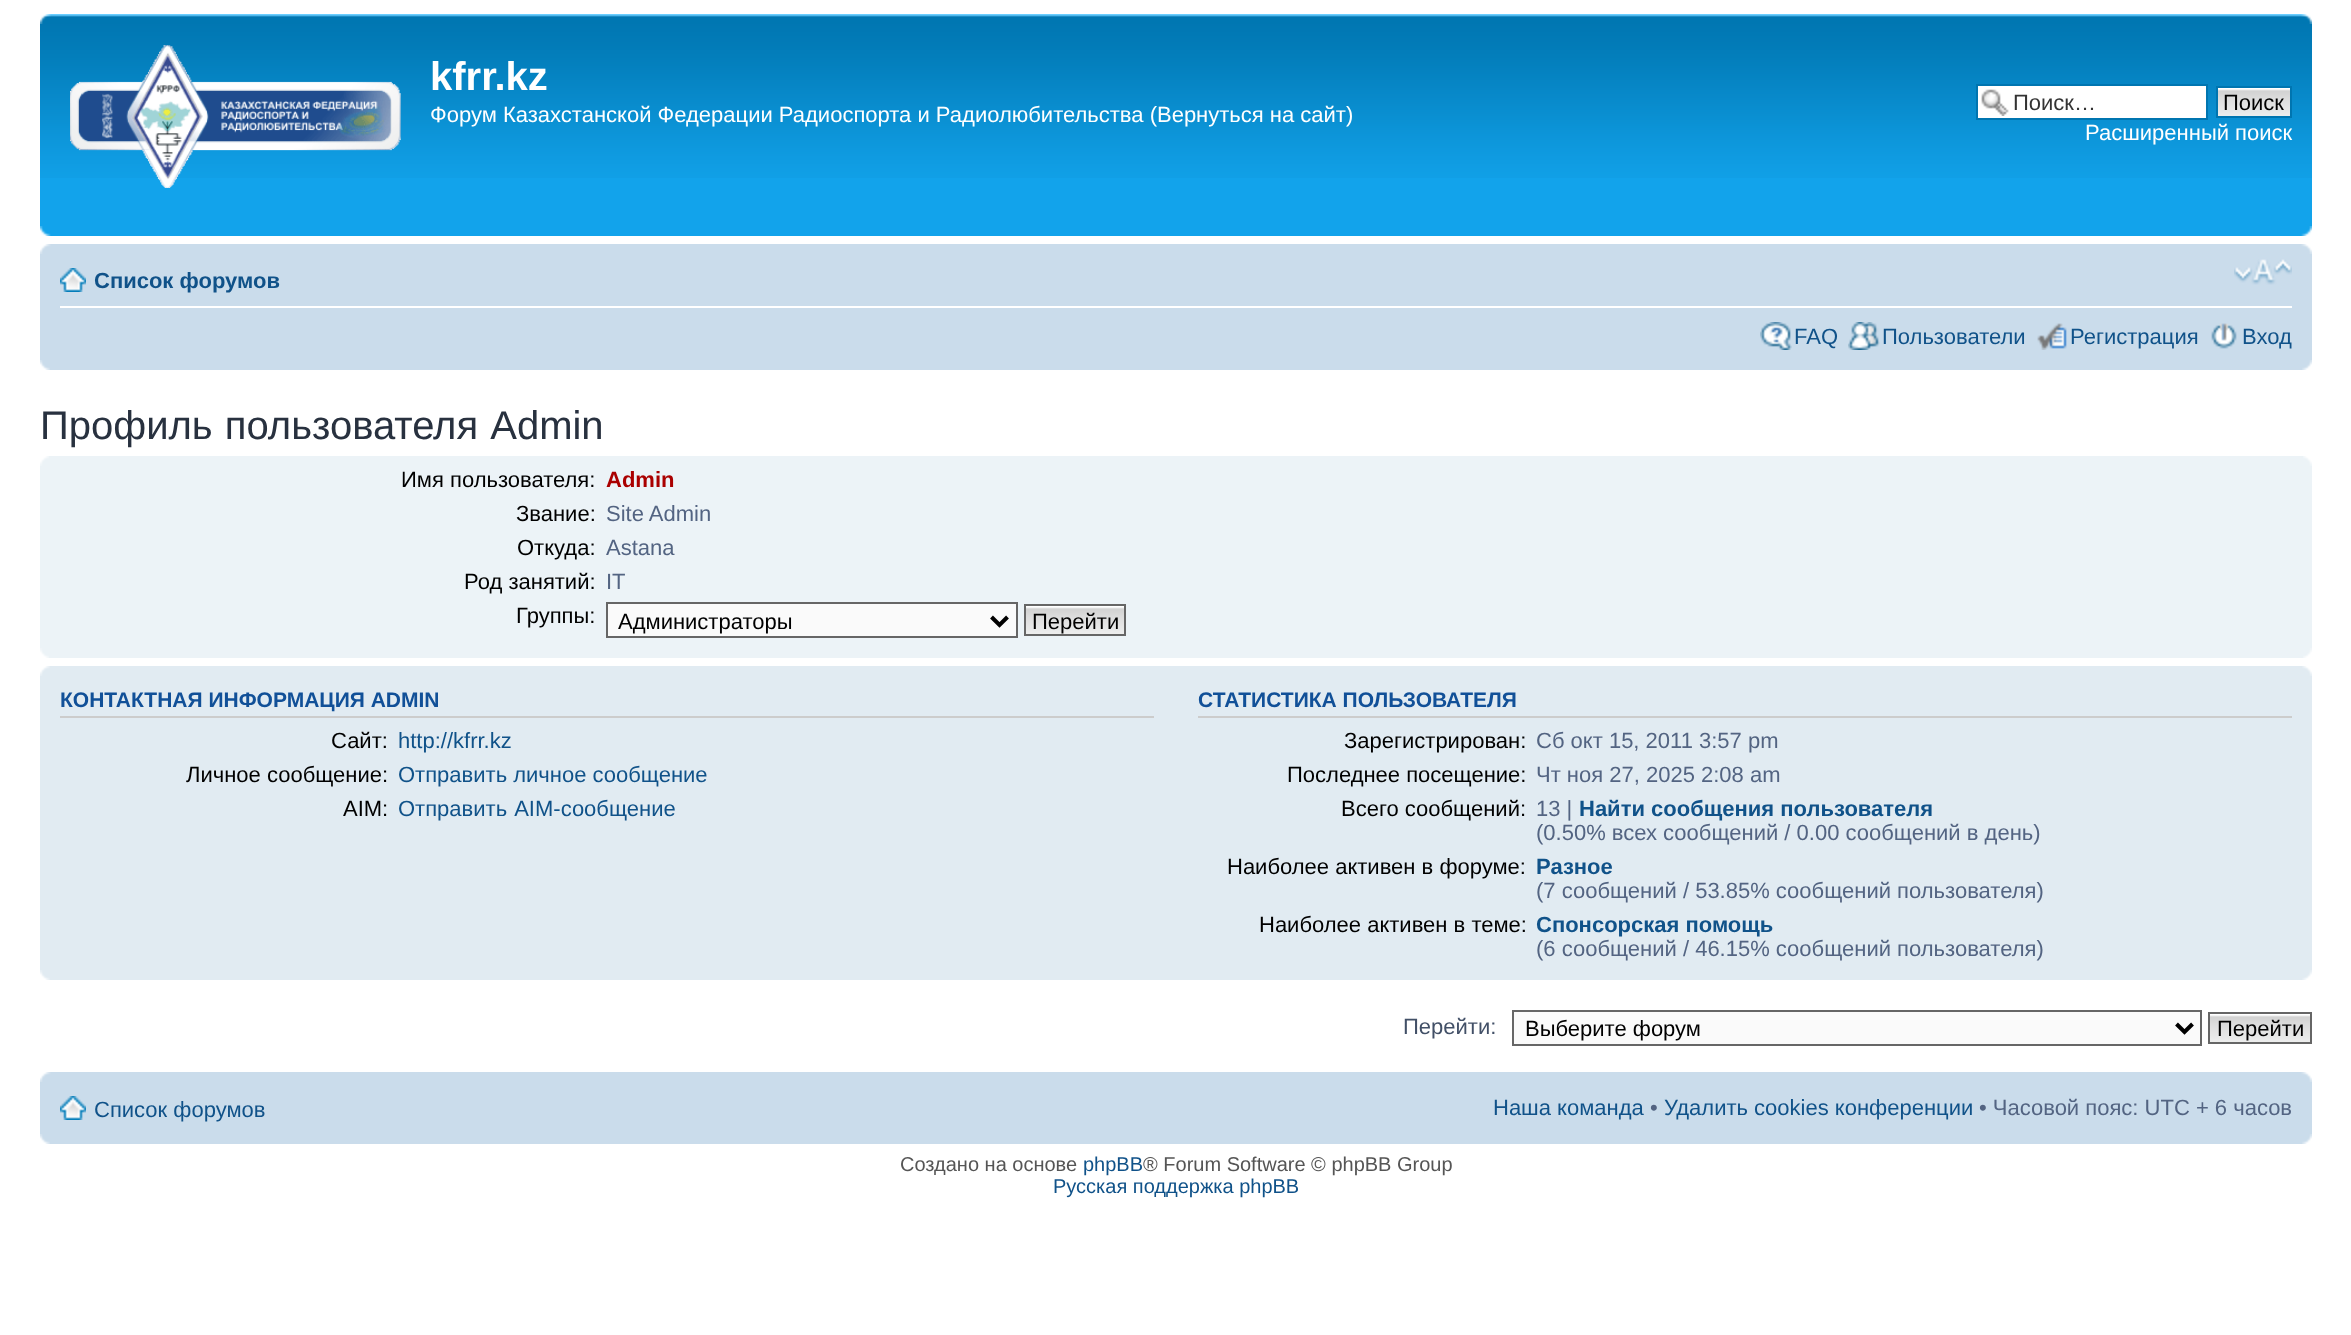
<svg xmlns="http://www.w3.org/2000/svg" width="2351" height="1335" viewBox="0 0 2351 1335">
  <rect width="100%" height="100%" fill="#fff"/>
  <path d="M40 178h2272v58H40z" fill="#12a3eb"/>
  <image x="40" y="14" width="2272" height="164" href="img/1.png"/>
  <image x="40" y="14" width="11" height="10" href="img/2.png"/>
  <image x="2301" y="14" width="11" height="10" href="img/3.png"/>
  <image x="70" y="45" width="331" height="143" href="img/4.png"/>
  <path d="M1978 86h228v32H1978z" fill="#fff"/>
  <image x="1981" y="89" width="28" height="27" href="img/5.png"/>
  <path d="M1977 85h230v34H1977z" fill="none" stroke="#0075b0" stroke-width="2"/>
  <image x="2218" y="88" width="72" height="28" href="img/6.png"/>
  <path d="M2217 87h74v30H2217z" fill="none" stroke="#0075b0" stroke-width="2"/>
  <image x="40" y="226" width="11" height="10" href="img/7.png"/>
  <image x="2301" y="226" width="11" height="10" href="img/8.png"/>
  <path d="M40 244h2272v126H40z" fill="#cadceb"/>
  <image x="40" y="244" width="11" height="10" href="img/9.png"/>
  <image x="2301" y="244" width="11" height="10" href="img/10.png"/>
  <path d="M60 306h2232v2H60z" fill="#fff"/>
  <image x="60" y="268" width="26" height="24" href="img/11.png"/>
  <image x="2234" y="259" width="58" height="26" href="img/12.png"/>
  <image x="1760" y="322" width="32" height="28" href="img/13.png"/>
  <image x="1848" y="322" width="32" height="28" href="img/14.png"/>
  <image x="2037" y="323" width="30" height="27" href="img/15.png"/>
  <image x="2211" y="323" width="26" height="26" href="img/16.png"/>
  <image x="40" y="360" width="10" height="10" href="img/17.png"/>
  <image x="2302" y="360" width="10" height="10" href="img/18.png"/>
  <path d="M40 456h2272v202H40z" fill="#ecf3f7"/>
  <image x="40" y="456" width="9" height="10" href="img/19.png"/>
  <image x="2303" y="456" width="9" height="10" href="img/20.png"/>
  <path d="M607 603h410v34H607z" fill="#fafafa" stroke="#666" stroke-width="2"/>
  <path d="M991.5 617L999.5 625L1007.5 617" fill="none" stroke="#000" stroke-width="4"/>
  <image x="1026" y="606" width="98" height="28" href="img/21.png"/>
  <path d="M1025 605h100v30H1025z" fill="none" stroke="#666" stroke-width="2"/>
  <image x="40" y="648" width="9" height="10" href="img/22.png"/>
  <image x="2303" y="648" width="9" height="10" href="img/23.png"/>
  <path d="M40 666h2272v314H40z" fill="#e1ebf2"/>
  <image x="40" y="666" width="10" height="10" href="img/24.png"/>
  <image x="2302" y="666" width="10" height="10" href="img/25.png"/>
  <path d="M60 716h1094v2H60z" fill="#ccc"/>
  <path d="M1198 716h1094v2H1198z" fill="#ccc"/>
  <image x="40" y="970" width="10" height="10" href="img/26.png"/>
  <image x="2302" y="970" width="10" height="10" href="img/27.png"/>
  <path d="M1513 1011h688v34H1513z" fill="#fafafa" stroke="#666" stroke-width="2"/>
  <path d="M2176.5 1024L2184.5 1032L2192.5 1024" fill="none" stroke="#000" stroke-width="4"/>
  <image x="2210" y="1014" width="100" height="28" href="img/28.png"/>
  <path d="M2209 1013h102v30H2209z" fill="none" stroke="#666" stroke-width="2"/>
  <path d="M40 1072h2272v72H40z" fill="#cadceb"/>
  <image x="40" y="1072" width="11" height="10" href="img/9.png"/>
  <image x="2301" y="1072" width="11" height="10" href="img/10.png"/>
  <image x="60" y="1096" width="26" height="24" href="img/11.png"/>
  <image x="40" y="1134" width="10" height="10" href="img/17.png"/>
  <image x="2302" y="1134" width="10" height="10" href="img/18.png"/>
  <text x="430" y="90" font-family="Liberation Sans" font-size="40" font-weight="bold" fill="#fff">kfrr.kz</text>
  <text x="430" y="122" font-family="Liberation Sans" font-size="22" fill="#fff">Форум Казахстанской Федерации Радиоспорта и Радиолюбительства (Вернуться на сайт)</text>
  <text x="2013" y="110" font-family="Liberation Sans" font-size="22" fill="#333">Поиск…</text>
  <text x="2223" y="110" font-family="Liberation Sans" font-size="22" fill="#000">Поиск</text>
  <text x="2085" y="140" font-family="Liberation Sans" font-size="22" fill="#fff">Расширенный поиск</text>
  <text x="94" y="288" font-family="Liberation Sans" font-size="22" font-weight="bold" fill="#105289">Список форумов</text>
  <g font-family="Liberation Sans" font-size="22" fill="#105289">
    <text x="1794" y="344">FAQ</text>
    <text x="1882" y="344">Пользователи</text>
    <text x="2070" y="344">Регистрация</text>
    <text x="2242" y="344">Вход</text>
  </g>
  <text x="40" y="439" word-spacing="1" font-family="Liberation Sans" font-size="40" fill="#28313f">Профиль пользователя Admin</text>
  <text x="401" y="487" font-family="Liberation Sans" font-size="22" fill="#000">Имя пользователя:</text>
  <text x="606" y="487" font-family="Liberation Sans" font-size="22" font-weight="bold" fill="#a00">Admin</text>
  <text x="516" y="521" font-family="Liberation Sans" font-size="22" fill="#000">Звание:</text>
  <text x="606" y="521" font-family="Liberation Sans" font-size="22" fill="#536482">Site Admin</text>
  <text x="517" y="555" font-family="Liberation Sans" font-size="22" fill="#000">Откуда:</text>
  <text x="606" y="555" font-family="Liberation Sans" font-size="22" fill="#536482">Astana</text>
  <text x="464" y="589" font-family="Liberation Sans" font-size="22" fill="#000">Род занятий:</text>
  <text x="606" y="589" font-family="Liberation Sans" font-size="22" fill="#536482">IT</text>
  <g font-family="Liberation Sans" font-size="22" fill="#000">
    <text x="516" y="623">Группы:</text>
    <text x="618" y="629">Администраторы</text>
    <text x="1032" y="629">Перейти</text>
  </g>
  <text x="60" y="707" font-family="Liberation Sans" font-size="21" font-weight="bold" fill="#115098">КОНТАКТНАЯ ИНФОРМАЦИЯ ADMIN</text>
  <text x="331" y="748" font-family="Liberation Sans" font-size="22" fill="#000">Сайт:</text>
  <text x="398" y="748" font-family="Liberation Sans" font-size="22" fill="#105289">http://kfrr.kz</text>
  <text x="186" y="782" font-family="Liberation Sans" font-size="22" fill="#000">Личное сообщение:</text>
  <text x="398" y="782" font-family="Liberation Sans" font-size="22" fill="#105289">Отправить личное сообщение</text>
  <text x="343" y="816" font-family="Liberation Sans" font-size="22" fill="#000">AIM:</text>
  <text x="398" y="816" word-spacing="1" font-family="Liberation Sans" font-size="22" fill="#105289">Отправить AIM-сообщение</text>
  <text x="1198" y="707" font-family="Liberation Sans" font-size="21" font-weight="bold" fill="#115098">СТАТИСТИКА ПОЛЬЗОВАТЕЛЯ</text>
  <text x="1344" y="748" font-family="Liberation Sans" font-size="22" fill="#000">Зарегистрирован:</text>
  <text x="1536" y="748" font-family="Liberation Sans" font-size="22" fill="#536482">Сб окт 15, 2011 3:57 pm</text>
  <text x="1287" y="782" font-family="Liberation Sans" font-size="22" fill="#000">Последнее посещение:</text>
  <text x="1536" y="782" font-family="Liberation Sans" font-size="22" fill="#536482">Чт ноя 27, 2025 2:08 am</text>
  <text x="1341" y="816" font-family="Liberation Sans" font-size="22" fill="#000">Всего сообщений:</text>
  <text x="1536" y="816" font-family="Liberation Sans" font-size="22" fill="#536482">13 |</text>
  <text x="1579" y="816" font-family="Liberation Sans" font-size="22" font-weight="bold" fill="#105289">Найти сообщения пользователя</text>
  <text x="1536" y="840" font-family="Liberation Sans" font-size="22" fill="#536482">(0.50% всех сообщений / 0.00 сообщений в день)</text>
  <text x="1227" y="874" font-family="Liberation Sans" font-size="22" fill="#000">Наиболее активен в форуме:</text>
  <text x="1536" y="874" font-family="Liberation Sans" font-size="22" font-weight="bold" fill="#105289">Разное</text>
  <text x="1536" y="898" font-family="Liberation Sans" font-size="22" fill="#536482">(7 сообщений / 53.85% сообщений пользователя)</text>
  <text x="1259" y="932" font-family="Liberation Sans" font-size="22" fill="#000">Наиболее активен в теме:</text>
  <text x="1536" y="932" font-family="Liberation Sans" font-size="22" font-weight="bold" fill="#105289">Спонсорская помощь</text>
  <text x="1536" y="956" font-family="Liberation Sans" font-size="22" fill="#536482">(6 сообщений / 46.15% сообщений пользователя)</text>
  <text x="1403" y="1034" font-family="Liberation Sans" font-size="22" fill="#425067">Перейти:</text>
  <g font-family="Liberation Sans" font-size="22" fill="#000">
    <text x="1525" y="1036">Выберите форум</text>
    <text x="2217" y="1036">Перейти</text>
  </g>
  <g font-family="Liberation Sans" font-size="22" fill="#105289">
    <text x="94" y="1117">Список форумов</text>
    <text x="1493" y="1115">Наша команда</text>
  </g>
  <text x="1650" y="1115" font-family="Liberation Sans" font-size="22" fill="#536482">•</text>
  <text x="1664" y="1115" font-family="Liberation Sans" font-size="22" fill="#105289">Удалить cookies конференции</text>
  <text x="1979" y="1115" font-family="Liberation Sans" font-size="22" fill="#536482">• Часовой пояс: UTC + 6 часов</text>
  <text x="900" y="1171" font-family="Liberation Sans" font-size="20" fill="#555">Создано на основе</text>
  <text x="1083" y="1171" font-family="Liberation Sans" font-size="20" fill="#105289">phpBB</text>
  <text x="1143" y="1171" font-family="Liberation Sans" font-size="20" fill="#555">® Forum Software © phpBB Group</text>
  <text x="1053" y="1193" font-family="Liberation Sans" font-size="20" fill="#105289">Русская поддержка phpBB</text>
</svg>
